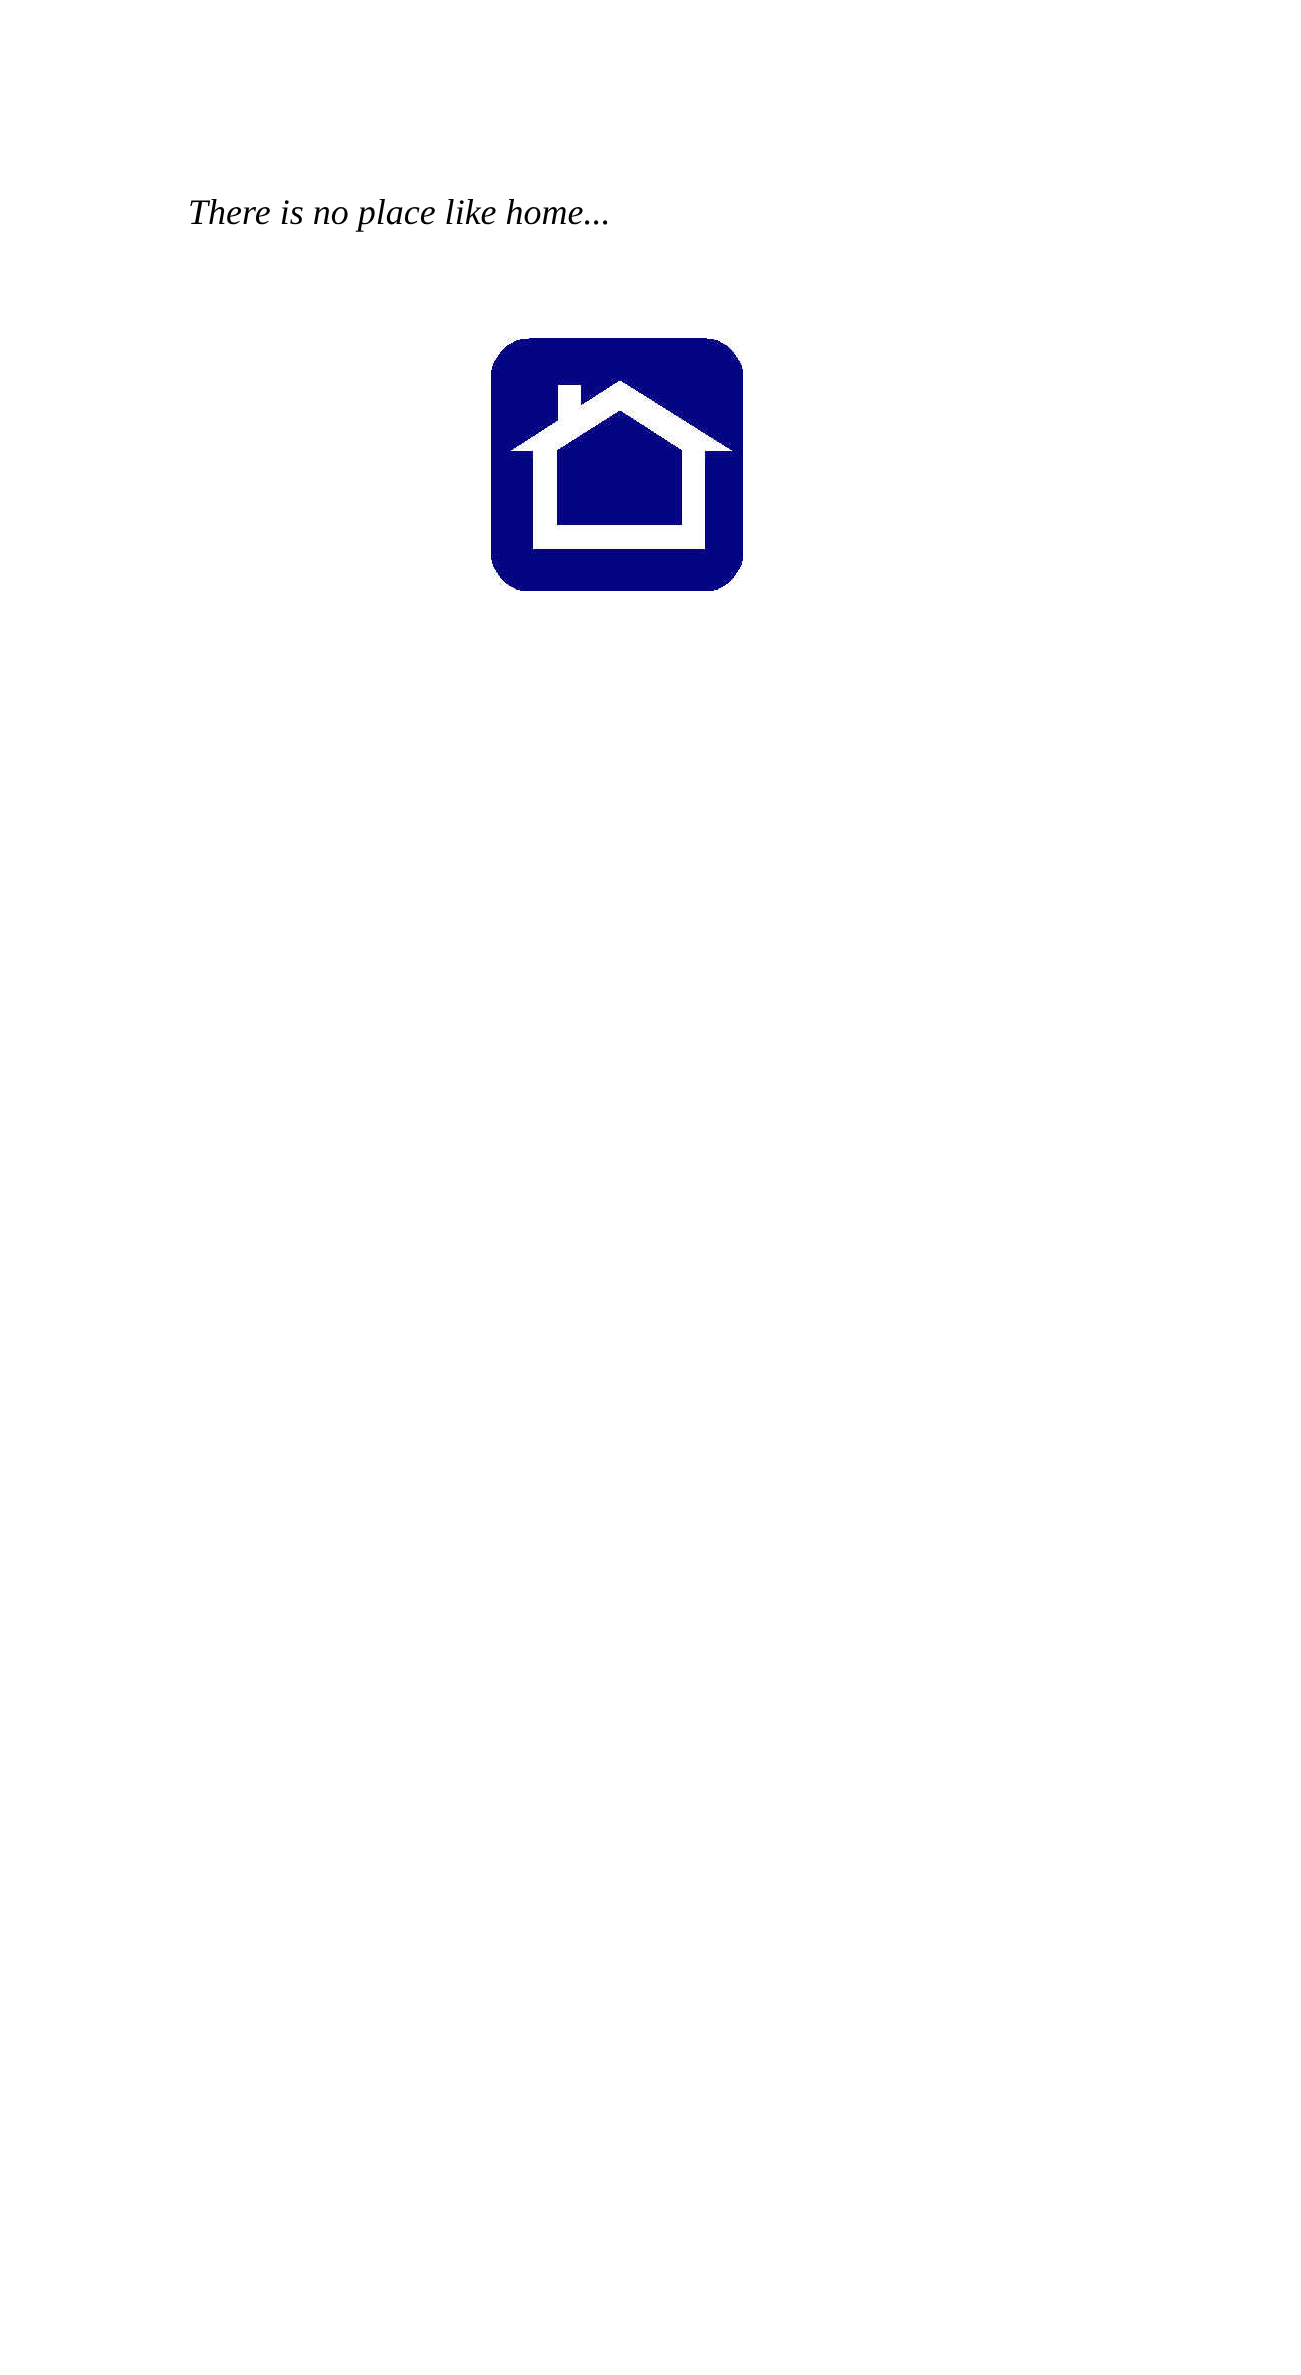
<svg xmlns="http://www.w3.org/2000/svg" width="1301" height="2375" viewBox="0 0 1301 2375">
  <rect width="100%" height="100%" fill="#fff"/>
  <image x="491" y="338" width="252" height="253" href="img/1.png"/>
  <text x="188" y="224" font-family="Liberation Serif" font-size="36" font-style="italic" fill="#000">There is no place like home...</text>
</svg>
